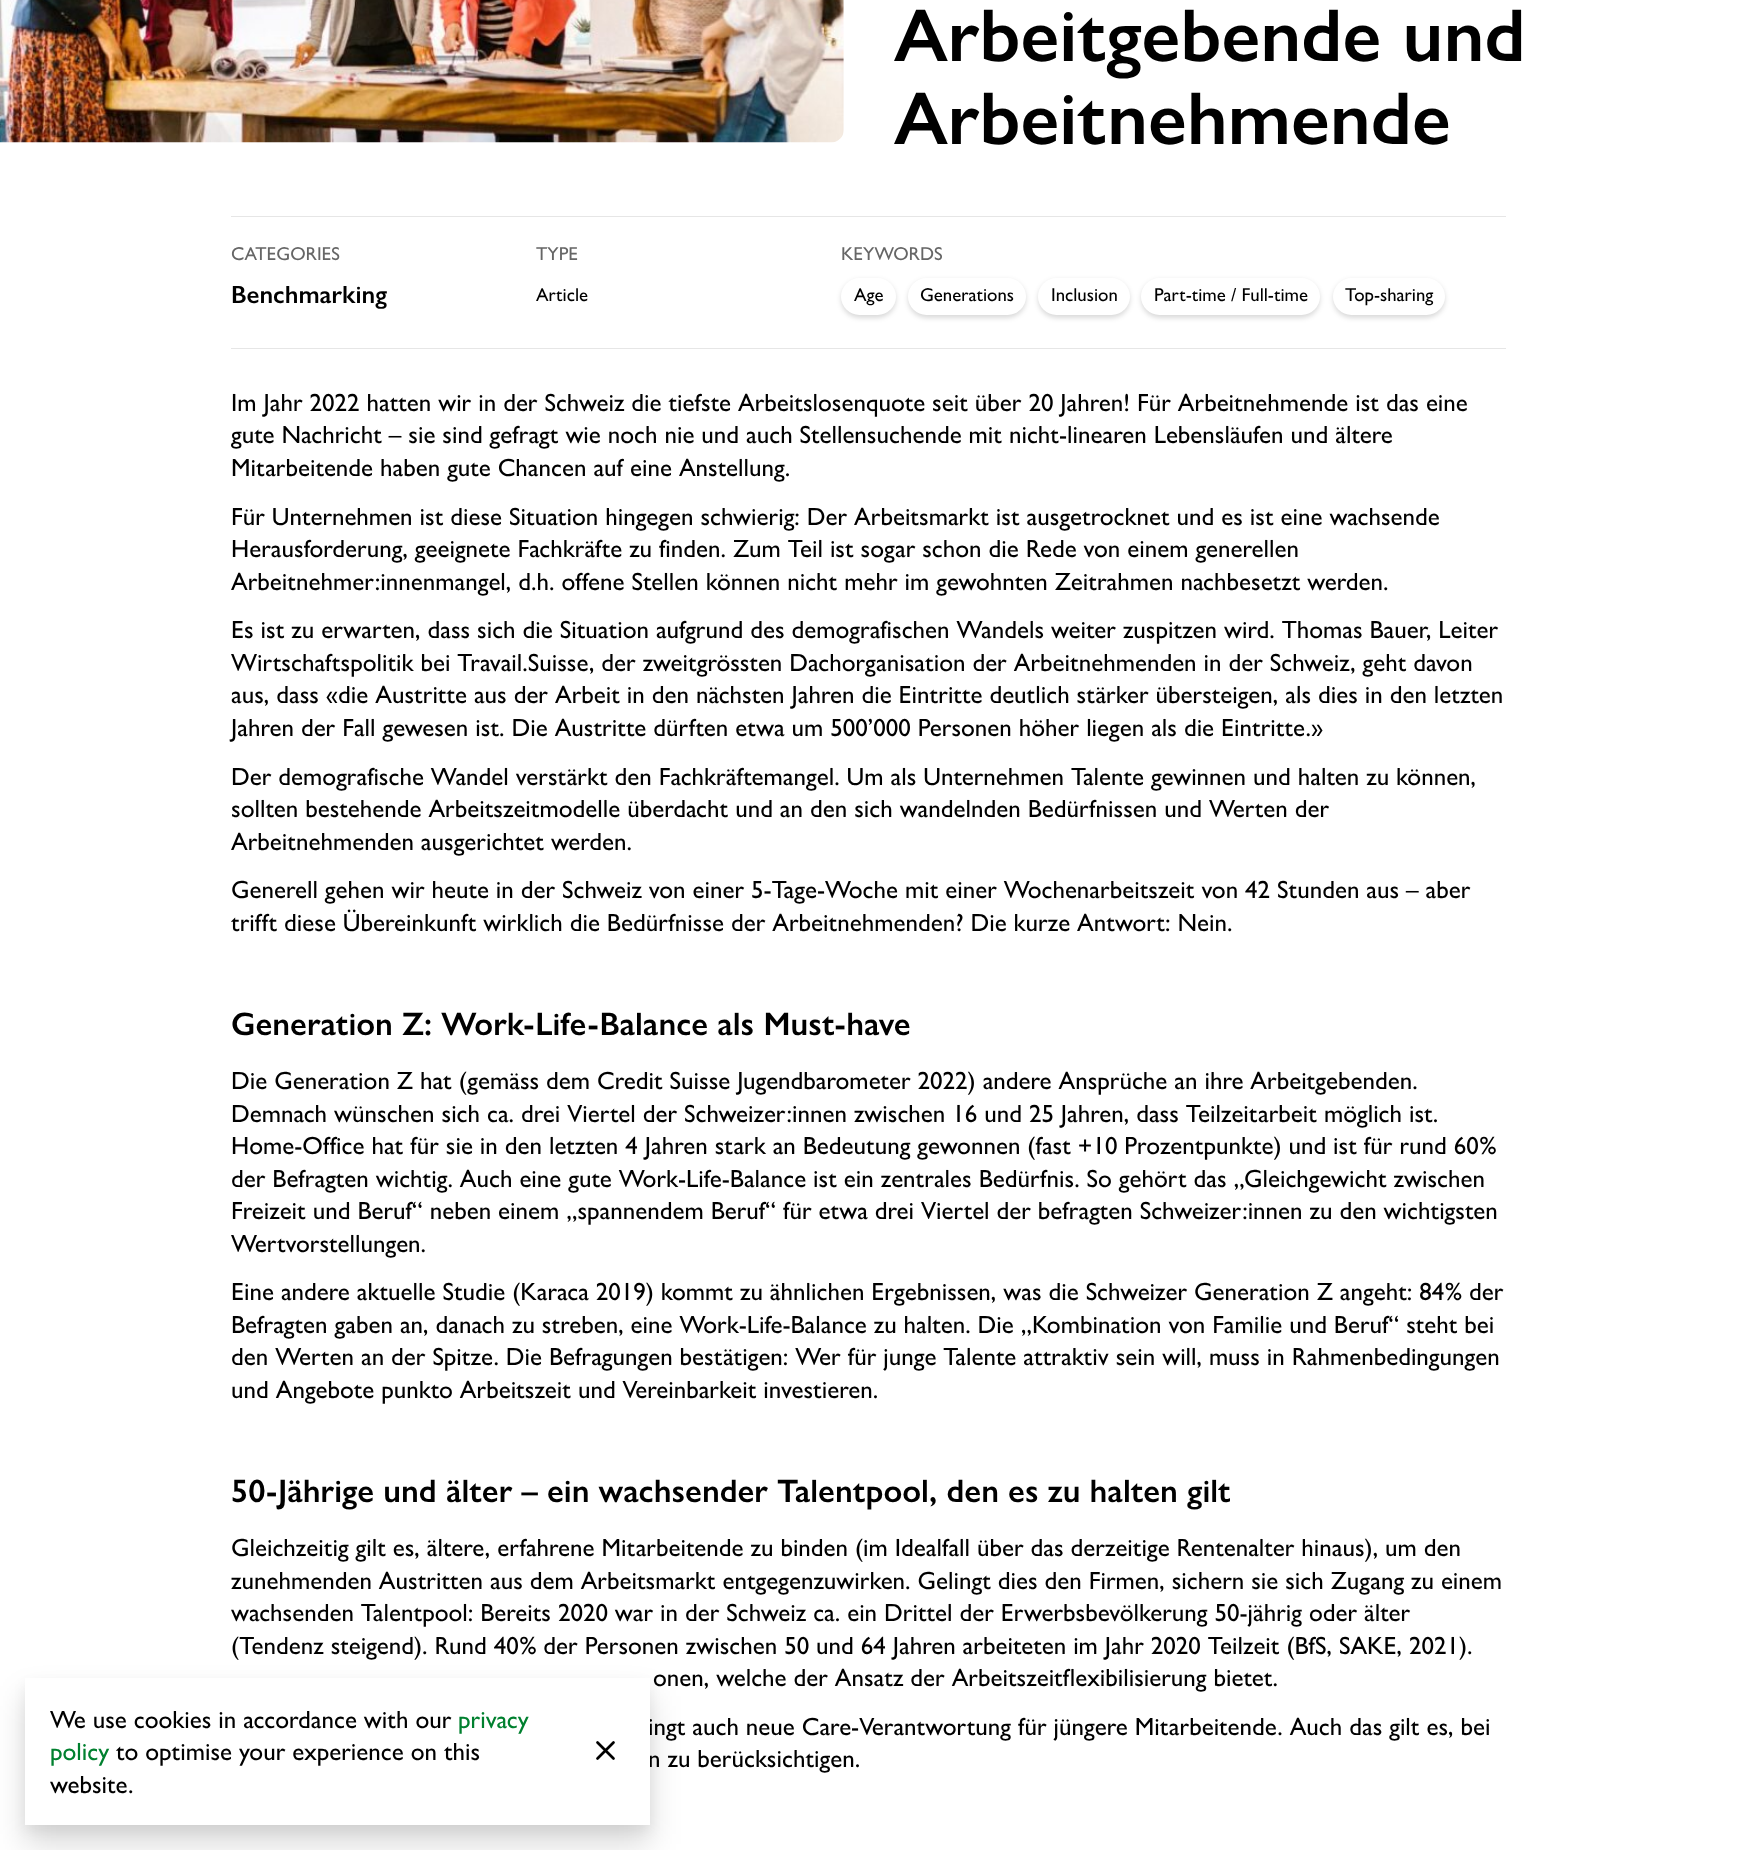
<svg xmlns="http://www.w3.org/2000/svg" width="1737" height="1850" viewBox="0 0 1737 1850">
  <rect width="100%" height="100%" fill="#fff"/>
  <image x="0" y="0" width="844" height="143" href="img/1.png"/>
  <path d="M231 216h1275v1H231z" fill="#e6e6e6"/>
  <path d="M231 348h1275v1H231z" fill="#e6e6e6"/>
  <rect x="841" y="280" width="55" height="38" rx="19" fill="#00000026" filter="blur(2.5px)"/>
  <rect x="841" y="278" width="55" height="37" rx="18.5" fill="#fff"/>
  <rect x="908" y="280" width="118" height="38" rx="19" fill="#00000026" filter="blur(2.5px)"/>
  <rect x="908" y="278" width="118" height="37" rx="18.5" fill="#fff"/>
  <rect x="1038" y="280" width="92" height="38" rx="19" fill="#00000026" filter="blur(2.5px)"/>
  <rect x="1038" y="278" width="92" height="37" rx="18.5" fill="#fff"/>
  <rect x="1141" y="280" width="179" height="38" rx="19" fill="#00000026" filter="blur(2.5px)"/>
  <rect x="1141" y="278" width="179" height="37" rx="18.5" fill="#fff"/>
  <rect x="1333" y="280" width="112" height="38" rx="19" fill="#00000026" filter="blur(2.5px)"/>
  <rect x="1333" y="278" width="112" height="37" rx="18.5" fill="#fff"/>
  <path d="M25 1684h625v147H25z" fill="#0000000d" filter="blur(6px)"/>
  <path d="M25 1696h625v148H25z" fill="#00000026" filter="blur(15.5px)"/>
  <g font-family="Gill Sans" font-size="75" font-weight="600" fill="#000">
    <text x="894" y="61">Arbeitgebende und</text>
    <text x="894" y="144">Arbeitnehmende</text>
  </g>
  <text x="231" y="260" font-family="Gill Sans" font-size="18.75" font-weight="500" fill="#666">CATEGORIES</text>
  <text x="231" y="303" font-family="Gill Sans" font-size="25" font-weight="600" fill="#000">Benchmarking</text>
  <text x="536" y="260" font-family="Gill Sans" font-size="18.75" font-weight="500" fill="#666">TYPE</text>
  <text x="536" y="301" font-family="Gill Sans" font-size="18.75" font-weight="500" fill="#000">Article</text>
  <text x="841" y="260" font-family="Gill Sans" font-size="18.75" font-weight="500" fill="#666">KEYWORDS</text>
  <g font-family="Gill Sans" font-size="18.75" font-weight="500" fill="#000">
    <text x="854" y="301">Age</text>
    <text x="920" y="301">Generations</text>
    <text x="1051" y="301">Inclusion</text>
    <text x="1154" y="301">Part-time / Full-time</text>
    <text x="1345" y="301">Top-sharing</text>
  </g>
  <g font-family="Gill Sans" font-size="25" font-weight="500" fill="#000">
    <text x="231" y="411">Im Jahr 2022 hatten wir in der Schweiz die tiefste Arbeitslosenquote seit über 20 Jahren! Für Arbeitnehmende ist das eine</text>
    <text x="231" y="443">gute Nachricht – sie sind gefragt wie noch nie und auch Stellensuchende mit nicht-linearen Lebensläufen und ältere</text>
    <text x="231" y="476">Mitarbeitende haben gute Chancen auf eine Anstellung.</text>
    <text x="231" y="525">Für Unternehmen ist diese Situation hingegen schwierig: Der Arbeitsmarkt ist ausgetrocknet und es ist eine wachsende</text>
    <text x="231" y="557">Herausforderung, geeignete Fachkräfte zu finden. Zum Teil ist sogar schon die Rede von einem generellen</text>
    <text x="231" y="590">Arbeitnehmer:innenmangel, d.h. offene Stellen können nicht mehr im gewohnten Zeitrahmen nachbesetzt werden.</text>
    <text x="231" y="638">Es ist zu erwarten, dass sich die Situation aufgrund des demografischen Wandels weiter zuspitzen wird. Thomas Bauer, Leiter</text>
    <text x="231" y="671">Wirtschaftspolitik bei Travail.Suisse, der zweitgrössten Dachorganisation der Arbeitnehmenden in der Schweiz, geht davon</text>
    <text x="231" y="703">aus, dass «die Austritte aus der Arbeit in den nächsten Jahren die Eintritte deutlich stärker übersteigen, als dies in den letzten</text>
    <text x="231" y="736">Jahren der Fall gewesen ist. Die Austritte dürften etwa um 500’000 Personen höher liegen als die Eintritte.»</text>
    <text x="231" y="785">Der demografische Wandel verstärkt den Fachkräftemangel. Um als Unternehmen Talente gewinnen und halten zu können,</text>
    <text x="231" y="817">sollten bestehende Arbeitszeitmodelle überdacht und an den sich wandelnden Bedürfnissen und Werten der</text>
    <text x="231" y="850">Arbeitnehmenden ausgerichtet werden.</text>
    <text x="231" y="898">Generell gehen wir heute in der Schweiz von einer 5-Tage-Woche mit einer Wochenarbeitszeit von 42 Stunden aus – aber</text>
    <text x="231" y="931">trifft diese Übereinkunft wirklich die Bedürfnisse der Arbeitnehmenden? Die kurze Antwort: Nein.</text>
  </g>
  <text x="231" y="1035" font-family="Gill Sans" font-size="32.5" font-weight="600" fill="#000">Generation Z: Work-Life-Balance als Must-have</text>
  <g font-family="Gill Sans" font-size="25" font-weight="500" fill="#000">
    <text x="231" y="1089">Die Generation Z hat (gemäss dem Credit Suisse Jugendbarometer 2022) andere Ansprüche an ihre Arbeitgebenden.</text>
    <text x="231" y="1122">Demnach wünschen sich ca. drei Viertel der Schweizer:innen zwischen 16 und 25 Jahren, dass Teilzeitarbeit möglich ist.</text>
    <text x="231" y="1154">Home-Office hat für sie in den letzten 4 Jahren stark an Bedeutung gewonnen (fast +10 Prozentpunkte) und ist für rund 60%</text>
    <text x="231" y="1187">der Befragten wichtig. Auch eine gute Work-Life-Balance ist ein zentrales Bedürfnis. So gehört das „Gleichgewicht zwischen</text>
    <text x="231" y="1219">Freizeit und Beruf“ neben einem „spannendem Beruf“ für etwa drei Viertel der befragten Schweizer:innen zu den wichtigsten</text>
    <text x="231" y="1252">Wertvorstellungen.</text>
    <text x="231" y="1300">Eine andere aktuelle Studie (Karaca 2019) kommt zu ähnlichen Ergebnissen, was die Schweizer Generation Z angeht: 84% der</text>
    <text x="231" y="1333">Befragten gaben an, danach zu streben, eine Work-Life-Balance zu halten. Die „Kombination von Familie und Beruf“ steht bei</text>
    <text x="231" y="1365">den Werten an der Spitze. Die Befragungen bestätigen: Wer für junge Talente attraktiv sein will, muss in Rahmenbedingungen</text>
    <text x="231" y="1398">und Angebote punkto Arbeitszeit und Vereinbarkeit investieren.</text>
  </g>
  <text x="231" y="1502" font-family="Gill Sans" font-size="32.5" font-weight="600" fill="#000">50-Jährige und älter – ein wachsender Talentpool, den es zu halten gilt</text>
  <g font-family="Gill Sans" font-size="25" font-weight="500" fill="#000">
    <text x="231" y="1556">Gleichzeitig gilt es, ältere, erfahrene Mitarbeitende zu binden (im Idealfall über das derzeitige Rentenalter hinaus), um den</text>
    <text x="231" y="1589">zunehmenden Austritten aus dem Arbeitsmarkt entgegenzuwirken. Gelingt dies den Firmen, sichern sie sich Zugang zu einem</text>
    <text x="231" y="1621">wachsenden Talentpool: Bereits 2020 war in der Schweiz ca. ein Drittel der Erwerbsbevölkerung 50-jährig oder älter</text>
    <text x="231" y="1654">(Tendenz steigend). Rund 40% der Personen zwischen 50 und 64 Jahren arbeiteten im Jahr 2020 Teilzeit (BfS, SAKE, 2021).</text>
    <text x="653" y="1686">onen, welche der Ansatz der Arbeitszeitflexibilisierung bietet.</text>
    <text x="648" y="1735">ingt auch neue Care-Verantwortung für jüngere Mitarbeitende. Auch das gilt es, bei</text>
    <text x="648" y="1767">n zu berücksichtigen.</text>
  </g>
  <path d="M25 1678h625v147H25z" fill="#fff"/>
  <text x="50" y="1728" font-family="Gill Sans" font-size="25" font-weight="500" fill="#000">We use cookies in accordance with our</text>
  <g font-family="Gill Sans" font-size="25" font-weight="500" fill="#00802f">
    <text x="458" y="1728">privacy</text>
    <text x="50" y="1760">policy</text>
  </g>
  <g font-family="Gill Sans" font-size="25" font-weight="500" fill="#000">
    <text x="116" y="1760">to optimise your experience on this</text>
    <text x="50" y="1793">website.</text>
  </g>
  <path d="M613.5 1742.5L597.5 1758.5M597.5 1742.5L613.5 1758.5" fill="none" stroke="#000" stroke-width="2.7" stroke-linecap="round" stroke-linejoin="round"/>
</svg>
